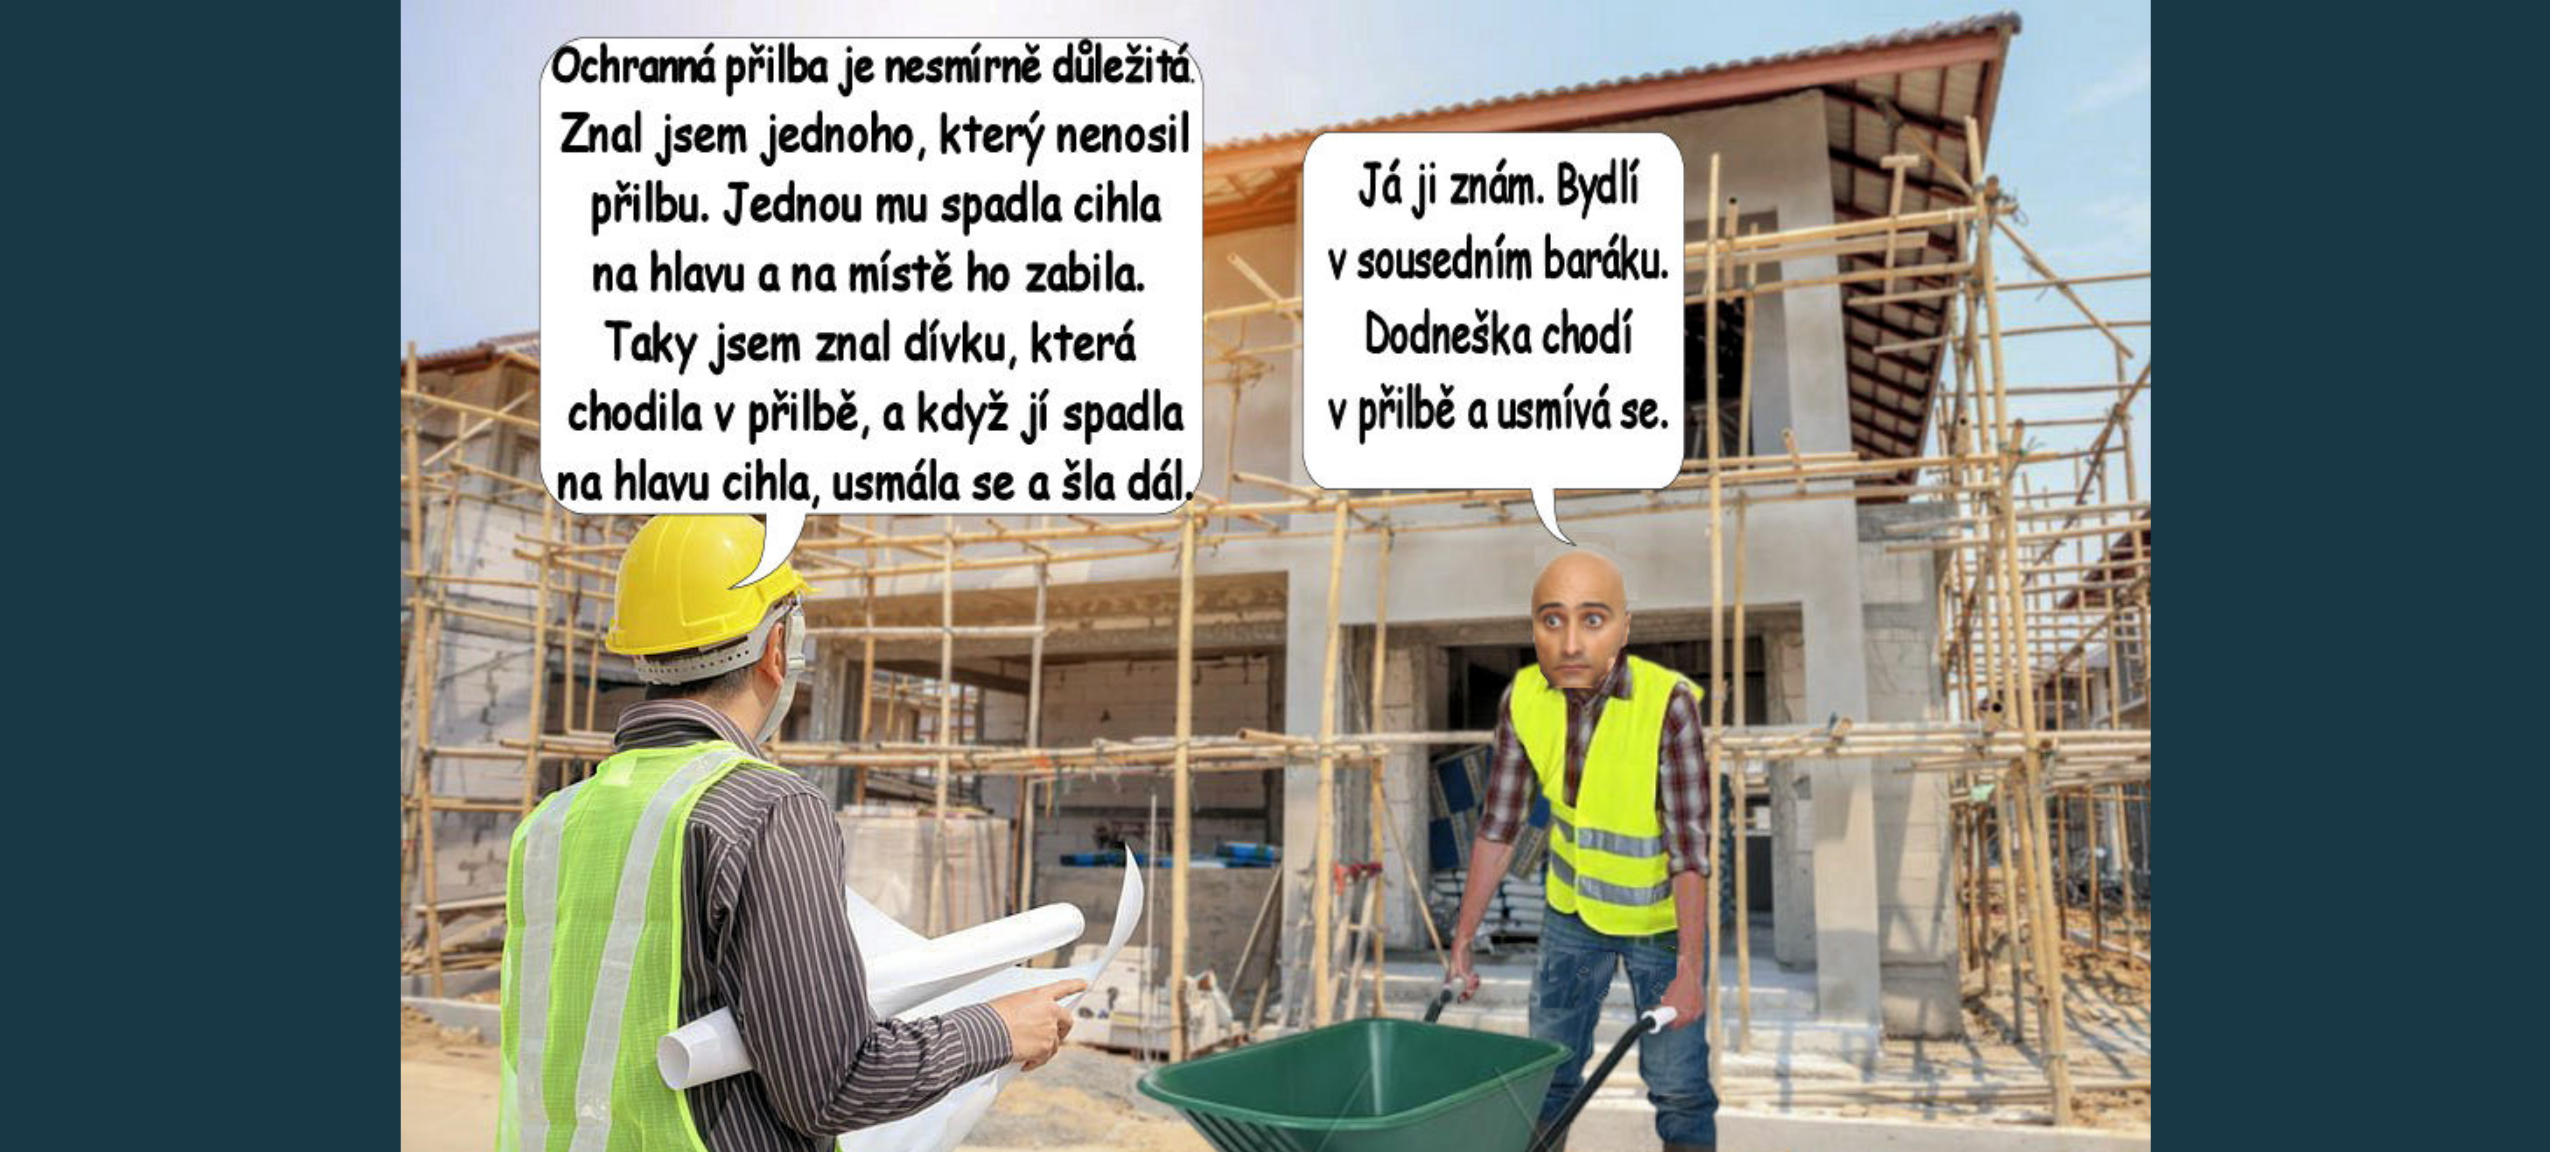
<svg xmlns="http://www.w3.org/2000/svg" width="2550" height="1152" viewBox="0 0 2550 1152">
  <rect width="100%" height="100%" fill="#183846"/>
  <image x="400" y="0" width="1751" height="1152" href="img/1.png"/>
</svg>
